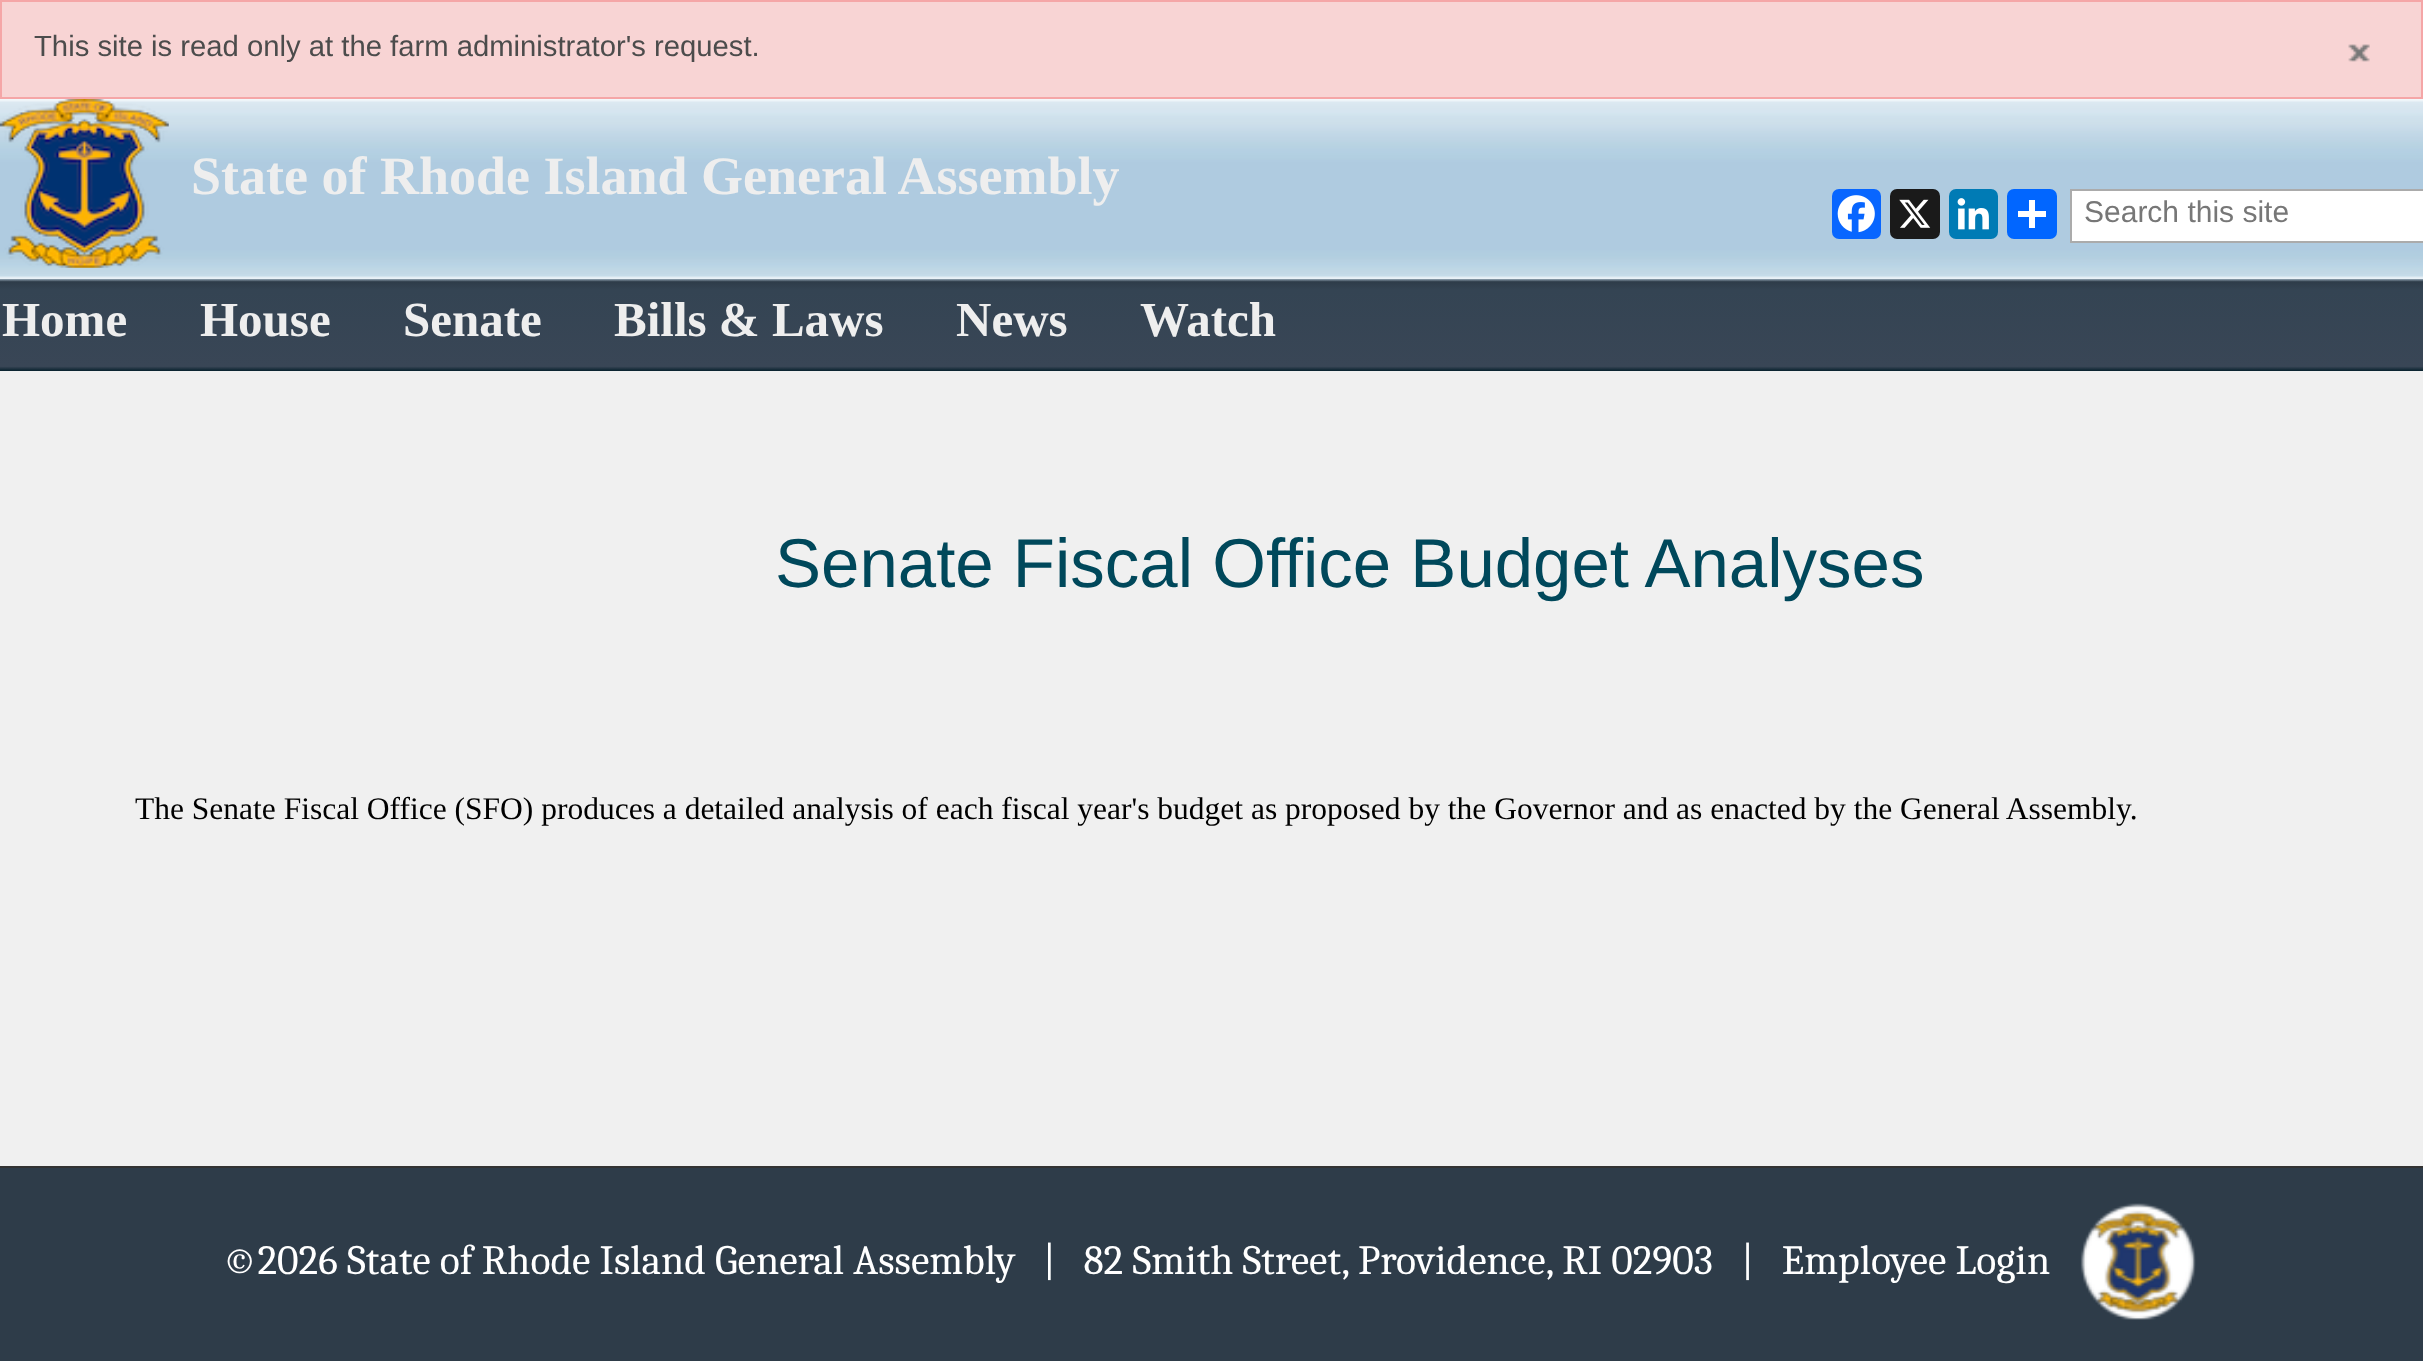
<svg xmlns="http://www.w3.org/2000/svg" width="2423" height="1361" viewBox="0 0 2423 1361">
  <defs>
    <linearGradient id="g1" gradientUnits="userSpaceOnUse" x1="1212" y1="279" x2="1212" y2="371"><stop offset="0" stop-color="#91a4b3"/><stop offset="0.03" stop-color="#2e3c49"/><stop offset="0.12" stop-color="#344453"/><stop offset="0.95" stop-color="#394656"/><stop offset="1" stop-color="#07212d"/></linearGradient>
  </defs>
  <rect width="100%" height="100%" fill="#f8d4d4"/>
  <path d="M1 1h2421v97H1z" fill="none" stroke="#f5a6a7" stroke-width="2"/>
  <image x="2348" y="44" width="22" height="18" href="img/1.png"/>
  <path d="M0 371h2423v795H0z" fill="#f0f0f0"/>
  <image x="0" y="99" width="2423" height="180" href="img/2.png"/>
  <image x="0" y="99" width="169" height="169" href="img/3.png"/>
  <rect x="1832" y="189" width="49" height="50" rx="7" fill="#0866ff"/>
  <image x="1837" y="195" width="38" height="38" href="img/4.png"/>
  <rect x="1890" y="189" width="50" height="50" rx="7" fill="#1a1a1a"/>
  <image x="1899" y="199" width="32" height="29" href="img/5.png"/>
  <rect x="1949" y="189" width="49" height="50" rx="7" fill="#007bb5"/>
  <image x="1957" y="198" width="32" height="32" href="img/6.png"/>
  <rect x="2007" y="189" width="50" height="50" rx="7" fill="#0166ff"/>
  <path d="M2029 200h6v28H2029z" fill="#fff"/>
  <path d="M2018 211h28v6H2018z" fill="#fff"/>
  <path d="M2071 190h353v52H2071z" fill="#fff" stroke="#ababab" stroke-width="2"/>
  <path d="M0 279h2423v92H0z" fill="url(#g1)"/>
  <path d="M0 1168h2423v193H0z" fill="#2e3c49"/>
  <path d="M0 1166h2423v2H0z" fill="#333"/>
  <image x="2080" y="1203" width="116" height="117" href="img/7.png"/>
  <text x="34" y="56" font-family="Liberation Sans" font-size="29.25" fill="#4c4c4c">This site is read only at the farm administrator's request.</text>
  <text x="191" y="194" font-family="Liberation Serif" font-size="54" font-weight="bold" fill="#eee">State of Rhode Island General Assembly</text>
  <text x="2084" y="222" font-family="Liberation Sans" font-size="30" fill="#777">Search this site</text>
  <g font-family="Liberation Serif" font-size="49" font-weight="bold" fill="#eee">
    <text x="2" y="336">Home</text>
    <text x="200" y="336">House</text>
    <text x="403" y="336">Senate</text>
    <text x="614" y="336">Bills &amp; Laws</text>
    <text x="956" y="336">News</text>
    <text x="1140" y="336">Watch</text>
  </g>
  <text x="775" y="587" font-family="Liberation Sans" font-size="69" fill="#00485b">Senate Fiscal Office Budget Analyses</text>
  <text x="135" y="819" font-family="Liberation Serif" font-size="31.5" fill="#000">The Senate Fiscal Office (SFO) produces a detailed analysis of each fiscal year's budget as proposed by the Governor and as enacted by the General Assembly.</text>
  <g font-family="Caladea" font-size="41.65" fill="#fff">
    <text x="222" y="1274" xml:space="preserve">©2026 State of Rhode Island General Assembly   |   82 Smith Street, Providence, RI 02903</text>
    <text x="1741" y="1274" xml:space="preserve">|   Employee Login</text>
  </g>
</svg>
